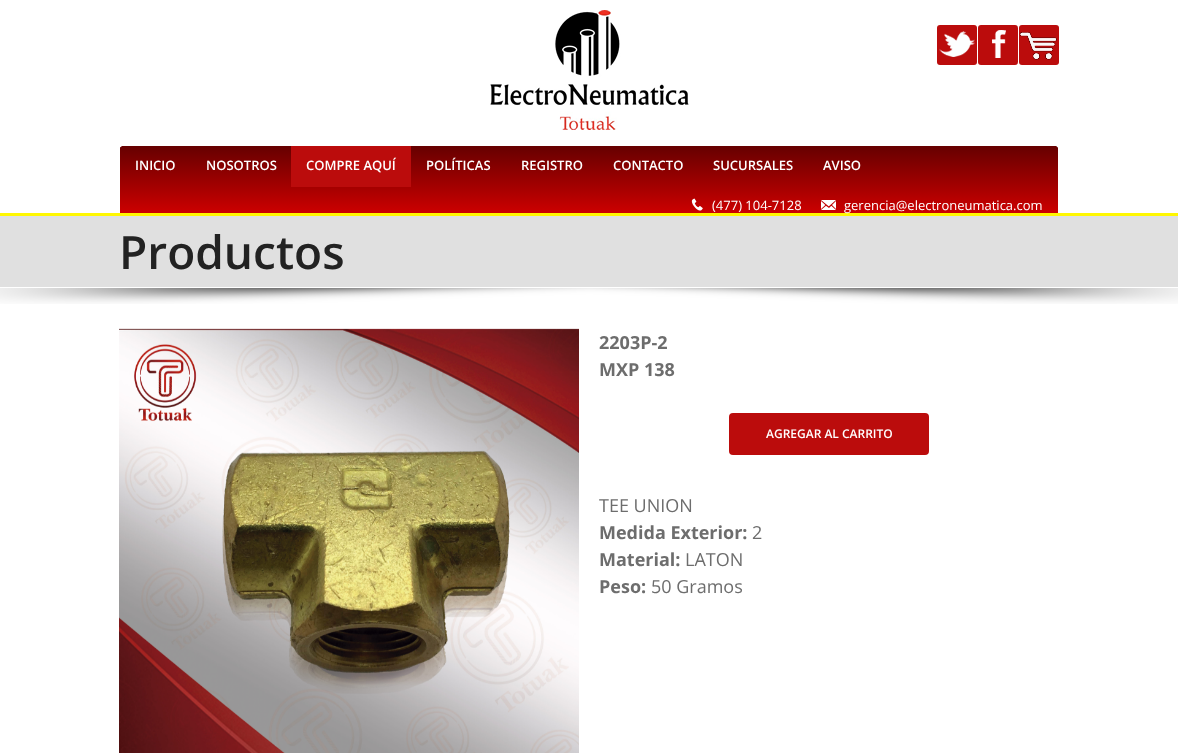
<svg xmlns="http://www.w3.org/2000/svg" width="1178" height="753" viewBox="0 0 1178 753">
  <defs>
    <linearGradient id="g1" gradientUnits="userSpaceOnUse" x1="120" y1="146" x2="120" y2="213"><stop offset="0" stop-color="#600"/><stop offset="1" stop-color="#c00"/></linearGradient>
  </defs>
  <rect width="100%" height="100%" fill="#fff"/>
  <path d="M0 213h1178v3H0z" fill="#fff701"/>
  <image x="490" y="10" width="199" height="120" href="img/1.png"/>
  <rect x="937" y="25" width="40" height="40" rx="3" fill="#bb0c0c"/>
  <image x="939" y="31" width="36" height="26" href="img/2.png"/>
  <rect x="978" y="25" width="40" height="40" rx="3" fill="#bb0c0c"/>
  <image x="992" y="30" width="14" height="28" href="img/3.png"/>
  <rect x="1019" y="25" width="40" height="40" rx="3" fill="#bb0c0c"/>
  <image x="1019" y="32" width="38" height="28" href="img/4.png"/>
  <path d="M122 146H1056C1057 146 1058 147 1058 148V213H120V148C120 147 121 146 122 146Z" fill="url(#g1)"/>
  <path d="M122 145H1056C1058 145 1059 146 1059 148V213H119V148C119 146 120 145 122 145ZM122 146H1056C1057 146 1058 147 1058 148V213H120V147Z" fill="#fff" fill-rule="evenodd"/>
  <path d="M291 146h120v41H291z" fill="#bb0c0c"/>
  <image x="691" y="198" width="12" height="13" href="img/5.png"/>
  <image x="821" y="200" width="15" height="10" href="img/6.png"/>
  <image x="0" y="288" width="1178" height="16" href="img/7.png"/>
  <path d="M0 216h1178v71H0z" fill="#e0e0e0"/>
  <image x="119" y="328" width="460" height="425" href="img/8.png"/>
  <rect x="729" y="413" width="200" height="42" rx="4" fill="#bb0c0c"/>
  <g font-family="Open Sans" font-size="13" font-weight="600" fill="#fff">
    <text x="135" y="170">INICIO</text>
    <text x="206" y="170">NOSOTROS</text>
    <text x="306" y="170">COMPRE AQUÍ</text>
    <text x="426" y="170">POLÍTICAS</text>
    <text x="521" y="170">REGISTRO</text>
    <text x="613" y="170">CONTACTO</text>
    <text x="713" y="170">SUCURSALES</text>
    <text x="823" y="170">AVISO</text>
  </g>
  <g font-family="Open Sans" font-size="13" fill="#fff">
    <text x="712" y="210">(477) 104-7128</text>
    <text x="844" y="210">gerencia@electroneumatica.com</text>
  </g>
  <text x="119" y="269" font-family="Open Sans" font-size="46" font-weight="600" fill="#222">Productos</text>
  <g font-family="Open Sans" font-size="18" font-weight="bold" fill="#6d6d6d">
    <text x="599" y="349">2203P-2</text>
    <text x="599" y="376">MXP 138</text>
  </g>
  <text x="766" y="438" font-family="Open Sans" font-size="12" font-weight="600" fill="#fff">AGREGAR AL CARRITO</text>
  <text x="599" y="512" font-family="Open Sans" font-size="18" fill="#6d6d6d">TEE UNION</text>
  <text x="599" y="539" font-family="Open Sans" font-size="18" font-weight="bold" fill="#6d6d6d">Medida Exterior:</text>
  <text x="752" y="539" font-family="Open Sans" font-size="18" fill="#6d6d6d">2</text>
  <text x="599" y="566" font-family="Open Sans" font-size="18" font-weight="bold" fill="#6d6d6d">Material:</text>
  <text x="685" y="566" font-family="Open Sans" font-size="18" fill="#6d6d6d">LATON</text>
  <text x="599" y="593" font-family="Open Sans" font-size="18" font-weight="bold" fill="#6d6d6d">Peso:</text>
  <text x="651" y="593" font-family="Open Sans" font-size="18" fill="#6d6d6d">50 Gramos</text>
</svg>
